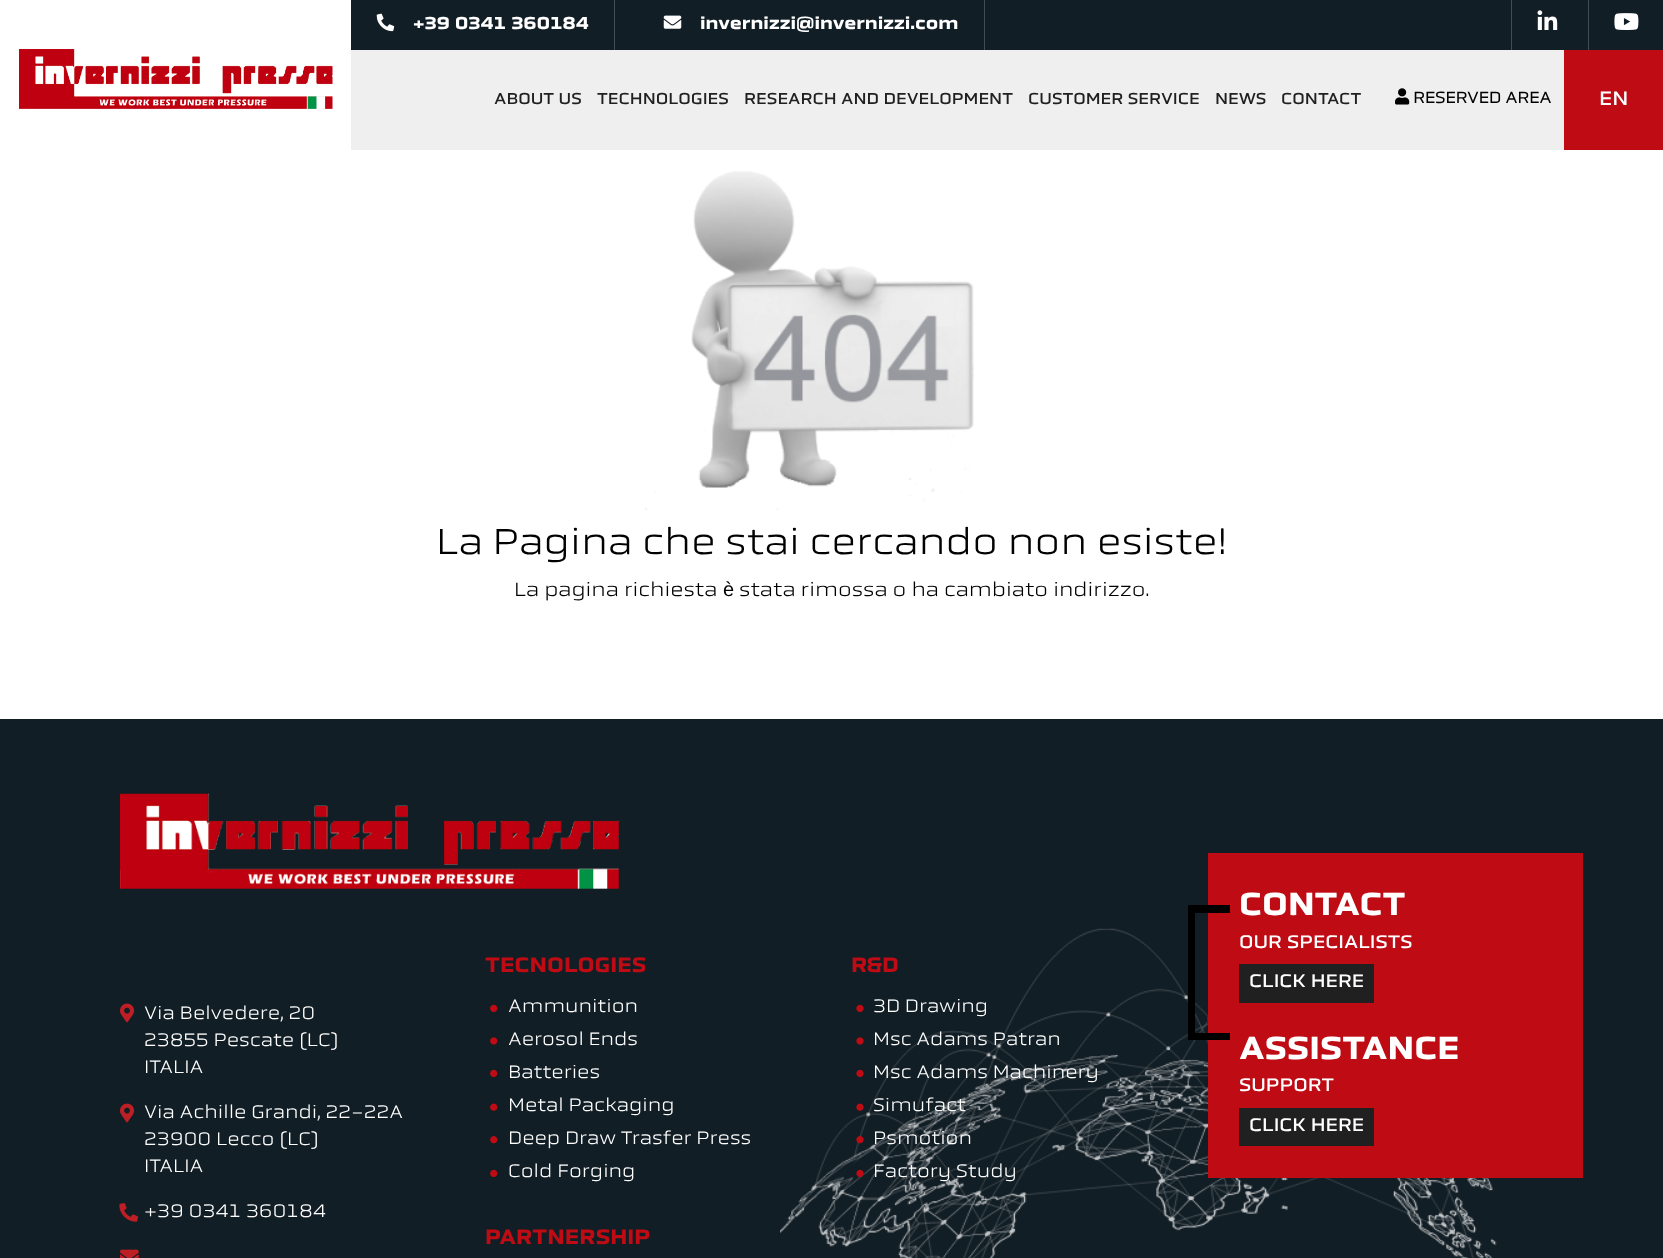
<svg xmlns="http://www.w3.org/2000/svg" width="1663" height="1258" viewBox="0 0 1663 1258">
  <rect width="100%" height="100%" fill="#fff"/>
  <image x="19" y="49" width="314" height="60" href="img/1.png"/>
  <path d="M351 50h1213v100H351z" fill="#efeff0"/>
  <path d="M351 0h1312v50H351z" fill="#121e25"/>
  <path d="M614 0h1v50H614z" fill="#414b51"/>
  <image x="376" y="13" width="19" height="19" href="img/2.png"/>
  <path d="M984 0h1v50H984z" fill="#414b51"/>
  <image x="663" y="15" width="19" height="14" href="img/3.png"/>
  <path d="M1511 0h1v50H1511z" fill="#414b51"/>
  <image x="1537" y="10" width="21" height="20" href="img/4.png"/>
  <path d="M1588 0h1v50H1588z" fill="#414b51"/>
  <image x="1614" y="13" width="25" height="17" href="img/5.png"/>
  <image x="1395" y="88" width="15" height="17" href="img/6.png"/>
  <path d="M1564 50h99v100H1564z" fill="#bf0b14"/>
  <image x="645" y="171" width="329" height="339" href="img/7.png"/>
  <path d="M0 719h1663v539H0z" fill="#121e25"/>
  <image x="780" y="928" width="717" height="330" href="img/8.png"/>
  <image x="120" y="793" width="499" height="96" href="img/9.png"/>
  <image x="120" y="1003" width="15" height="20" href="img/10.png"/>
  <image x="120" y="1103" width="15" height="20" href="img/10.png"/>
  <image x="119" y="1203" width="19" height="19" href="img/11.png"/>
  <image x="120" y="1249" width="19" height="9" href="img/12.png"/>
  <image x="490" y="1004" width="8" height="9" href="img/13.png"/>
  <image x="490" y="1037" width="8" height="8" href="img/14.png"/>
  <image x="490" y="1069" width="8" height="9" href="img/13.png"/>
  <image x="490" y="1103" width="8" height="8" href="img/15.png"/>
  <image x="490" y="1136" width="8" height="8" href="img/16.png"/>
  <image x="490" y="1169" width="8" height="9" href="img/13.png"/>
  <image x="856" y="1004" width="8" height="8" href="img/17.png"/>
  <image x="856" y="1037" width="8" height="8" href="img/18.png"/>
  <image x="856" y="1069" width="8" height="8" href="img/17.png"/>
  <image x="856" y="1103" width="8" height="8" href="img/19.png"/>
  <image x="856" y="1136" width="8" height="8" href="img/20.png"/>
  <image x="856" y="1169" width="8" height="8" href="img/21.png"/>
  <path d="M1208 853h375v325H1208z" fill="#bf0b14"/>
  <path d="M1188 905h42v8H1188z" fill="#000"/>
  <path d="M1188 1033h42v7H1188z" fill="#000"/>
  <path d="M1188 905h7v134H1188z" fill="#000"/>
  <path d="M1239 964h135v39H1239z" fill="#202020"/>
  <path d="M1239 1108h135v38H1239z" fill="#202020"/>
  <g font-family="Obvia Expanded" font-size="17.5" font-weight="bold" fill="#fff">
    <text x="413" y="29">+39 0341 360184</text>
    <text x="700" y="29">invernizzi@invernizzi.com</text>
  </g>
  <g font-family="Obvia Expanded" font-size="16.25" font-weight="600" fill="#202020">
    <text x="494" y="104">ABOUT US</text>
    <text x="597" y="104">TECHNOLOGIES</text>
    <text x="744" y="104">RESEARCH AND DEVELOPMENT</text>
    <text x="1028" y="104">CUSTOMER SERVICE</text>
    <text x="1215" y="104">NEWS</text>
    <text x="1281" y="104">CONTACT</text>
  </g>
  <text x="1413" y="103" font-family="'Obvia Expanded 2'" font-size="16.25" font-weight="bold" fill="#000">RESERVED AREA</text>
  <text x="1599" y="105" font-family="Obvia Expanded" font-size="20" font-weight="600" fill="#fff">EN</text>
  <text x="436" y="554" font-family="Obvia Expanded" font-size="37.5" font-weight="300" fill="#000">La Pagina che stai cercando non esiste!</text>
  <text x="514" y="596" font-family="Obvia Expanded" font-size="20" font-weight="300" fill="#000">La pagina richiesta</text>
  <text x="723" y="596" font-family="Liberation Sans" font-size="20" fill="#000">è</text>
  <text x="739" y="596" font-family="Obvia Expanded" font-size="20" font-weight="300" fill="#000">stata rimossa o ha cambiato indirizzo.</text>
  <g font-family="Obvia Expanded" font-size="18.75" font-weight="300" fill="#fff">
    <text x="144" y="1019">Via Belvedere, 20</text>
    <text x="144" y="1046">23855 Pescate (LC)</text>
    <text x="144" y="1073">ITALIA</text>
    <text x="144" y="1118">Via Achille Grandi, 22-22A</text>
    <text x="144" y="1145">23900 Lecco (LC)</text>
    <text x="144" y="1172">ITALIA</text>
    <text x="144" y="1217">+39 0341 360184</text>
  </g>
  <text x="485" y="972" font-family="Obvia Expanded" font-size="21.25" font-weight="bold" fill="#bf0b14">TECNOLOGIES</text>
  <g font-family="Obvia Expanded" font-size="18.75" font-weight="300" fill="#fff">
    <text x="508" y="1012">Ammunition</text>
    <text x="508" y="1045">Aerosol Ends</text>
    <text x="508" y="1078">Batteries</text>
    <text x="508" y="1111">Metal Packaging</text>
    <text x="508" y="1144">Deep Draw Trasfer Press</text>
    <text x="508" y="1177">Cold Forging</text>
  </g>
  <g font-family="Obvia Expanded" font-size="21.25" font-weight="bold" fill="#bf0b14">
    <text x="485" y="1244">PARTNERSHIP</text>
    <text x="851" y="972">R&amp;D</text>
  </g>
  <g font-family="Obvia Expanded" font-size="18.75" font-weight="300" fill="#fff">
    <text x="873" y="1012">3D Drawing</text>
    <text x="873" y="1045">Msc Adams Patran</text>
    <text x="873" y="1078">Msc Adams Machinery</text>
    <text x="873" y="1111">Simufact</text>
    <text x="873" y="1144">Psmotion</text>
    <text x="873" y="1177">Factory Study</text>
  </g>
  <text x="1239" y="915" font-family="Obvia Expanded" font-size="32.5" font-weight="bold" fill="#fff">CONTACT</text>
  <g font-family="Obvia Expanded" font-size="18.75" font-weight="600" fill="#fff">
    <text x="1239" y="948">OUR SPECIALISTS</text>
    <text x="1249" y="987">CLICK HERE</text>
  </g>
  <text x="1239" y="1059" font-family="Obvia Expanded" font-size="32.5" font-weight="bold" fill="#fff">ASSISTANCE</text>
  <g font-family="Obvia Expanded" font-size="18.75" font-weight="600" fill="#fff">
    <text x="1239" y="1091">SUPPORT</text>
    <text x="1249" y="1131">CLICK HERE</text>
  </g>
</svg>
